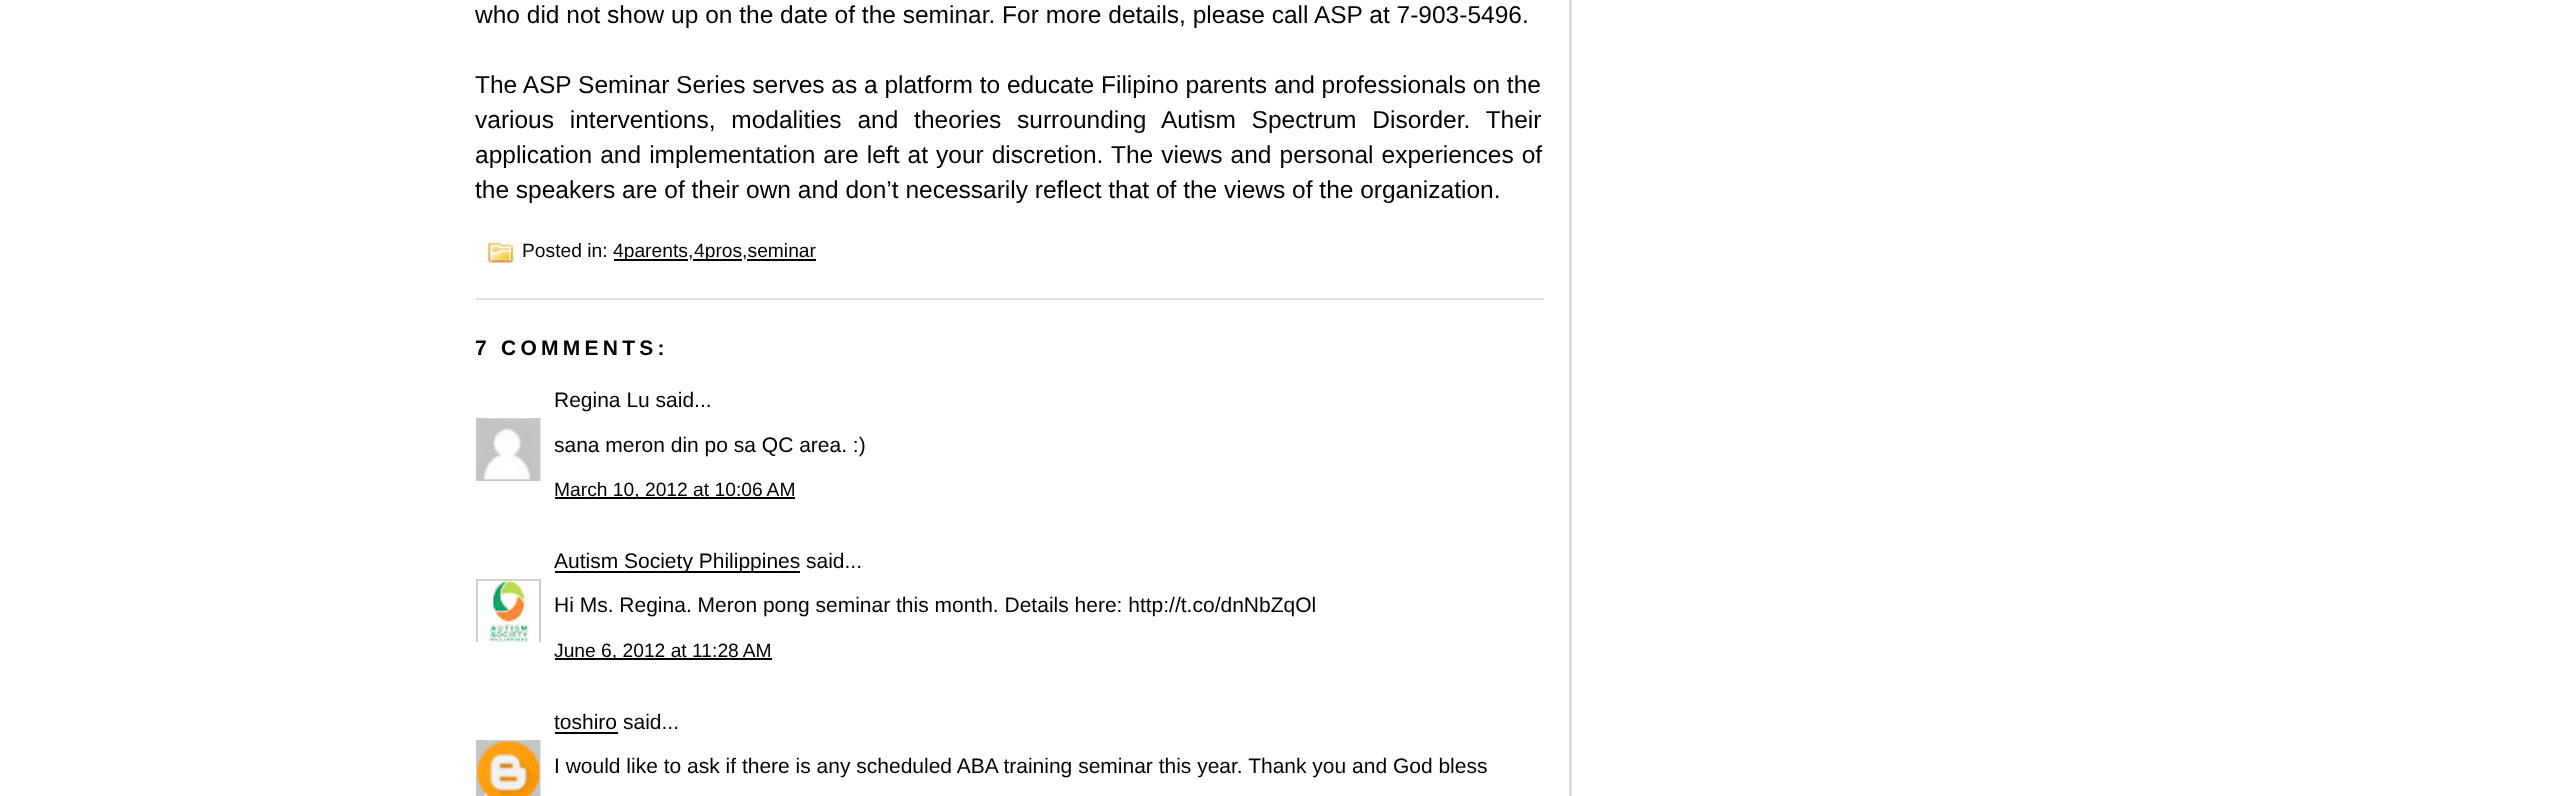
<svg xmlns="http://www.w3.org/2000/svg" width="2560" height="796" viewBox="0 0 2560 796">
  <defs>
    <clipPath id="clip1"><path d="M476 579h65v63H476z"/></clipPath>
  </defs>
  <rect width="100%" height="100%" fill="#fff"/>
  <path d="M1569 0h3v796H1569z" fill="#dfdfdf"/>
  <path d="M476 298h1068v2H476z" fill="#e4e1e1"/>
  <image x="487" y="242" width="27" height="21" href="img/1.png"/>
  <path d="M614 259h74v2H614z" fill="#040404"/>
  <path d="M693 259h49v2H693z" fill="#040404"/>
  <image x="476" y="418" width="65" height="63" href="img/2.png"/>
  <path d="M555 497h240v2H555z" fill="#040404"/>
  <path d="M555 571h245v2H555z" fill="#040404"/>
  <image x="478" y="581" width="61" height="61" href="img/3.png"/>
  <g clip-path="url(#clip1)">
    <path d="M477 580h63v63H477z" fill="none" stroke="#ccc" stroke-width="2"/>
  </g>
  <image x="477" y="580" width="62" height="62" href="img/4.png"/>
  <path d="M555 658h217v2H555z" fill="#040404"/>
  <path d="M555 732h63v2H555z" fill="#040404"/>
  <image x="476" y="740" width="65" height="56" href="img/5.png"/>
  <image x="477" y="741" width="62" height="55" href="img/6.png"/>
  <g font-family="Liberation Sans" font-size="24.5" fill="#000">
    <text x="475" y="23">who did not show up on the date of the seminar. For more details, please call ASP at 7-903-5496.</text>
    <text x="475" y="93">The ASP Seminar Series serves as a platform to educate Filipino parents and professionals on the</text>
    <text x="475" y="128" word-spacing="9">various interventions, modalities and theories surrounding Autism Spectrum Disorder. Their</text>
    <text x="475" y="163" word-spacing="1.25">application and implementation are left at your discretion. The views and personal experiences of</text>
    <text x="475" y="198">the speakers are of their own and don’t necessarily reflect that of the views of the organization.</text>
  </g>
  <g font-family="Liberation Sans" font-size="19.25" fill="#000">
    <text x="522" y="257">Posted in:</text>
    <text x="613" y="257">4parents</text>
    <text x="688" y="257">,</text>
    <text x="694" y="257">4pros seminar</text>
    <text x="742" y="257">,</text>
  </g>
  <path d="M747 259h69v2H747z" fill="#040404"/>
  <text x="475" y="355" font-family="Liberation Sans" font-size="21" font-weight="bold" letter-spacing="4.25" fill="#000">7 COMMENTS:</text>
  <g font-family="Liberation Sans" font-size="21" fill="#000">
    <text x="554" y="407">Regina Lu said...</text>
    <text x="554" y="452">sana meron din po sa QC area. :)</text>
  </g>
  <text x="554" y="496" font-family="Liberation Sans" font-size="19.25" fill="#000">March 10, 2012 at 10:06 AM</text>
  <g font-family="Liberation Sans" font-size="21" fill="#000">
    <text x="554" y="568">Autism Society Philippines</text>
    <text x="806" y="568">said...</text>
    <text x="554" y="612">Hi Ms. Regina. Meron pong seminar this month. Details here: http://t.co/dnNbZqOl</text>
  </g>
  <text x="554" y="657" font-family="Liberation Sans" font-size="19.25" fill="#000">June 6, 2012 at 11:28 AM</text>
  <g font-family="Liberation Sans" font-size="21" fill="#000">
    <text x="554" y="729">toshiro</text>
    <text x="623" y="729">said...</text>
    <text x="554" y="773">I would like to ask if there is any scheduled ABA training seminar this year. Thank you and God bless</text>
  </g>
</svg>
